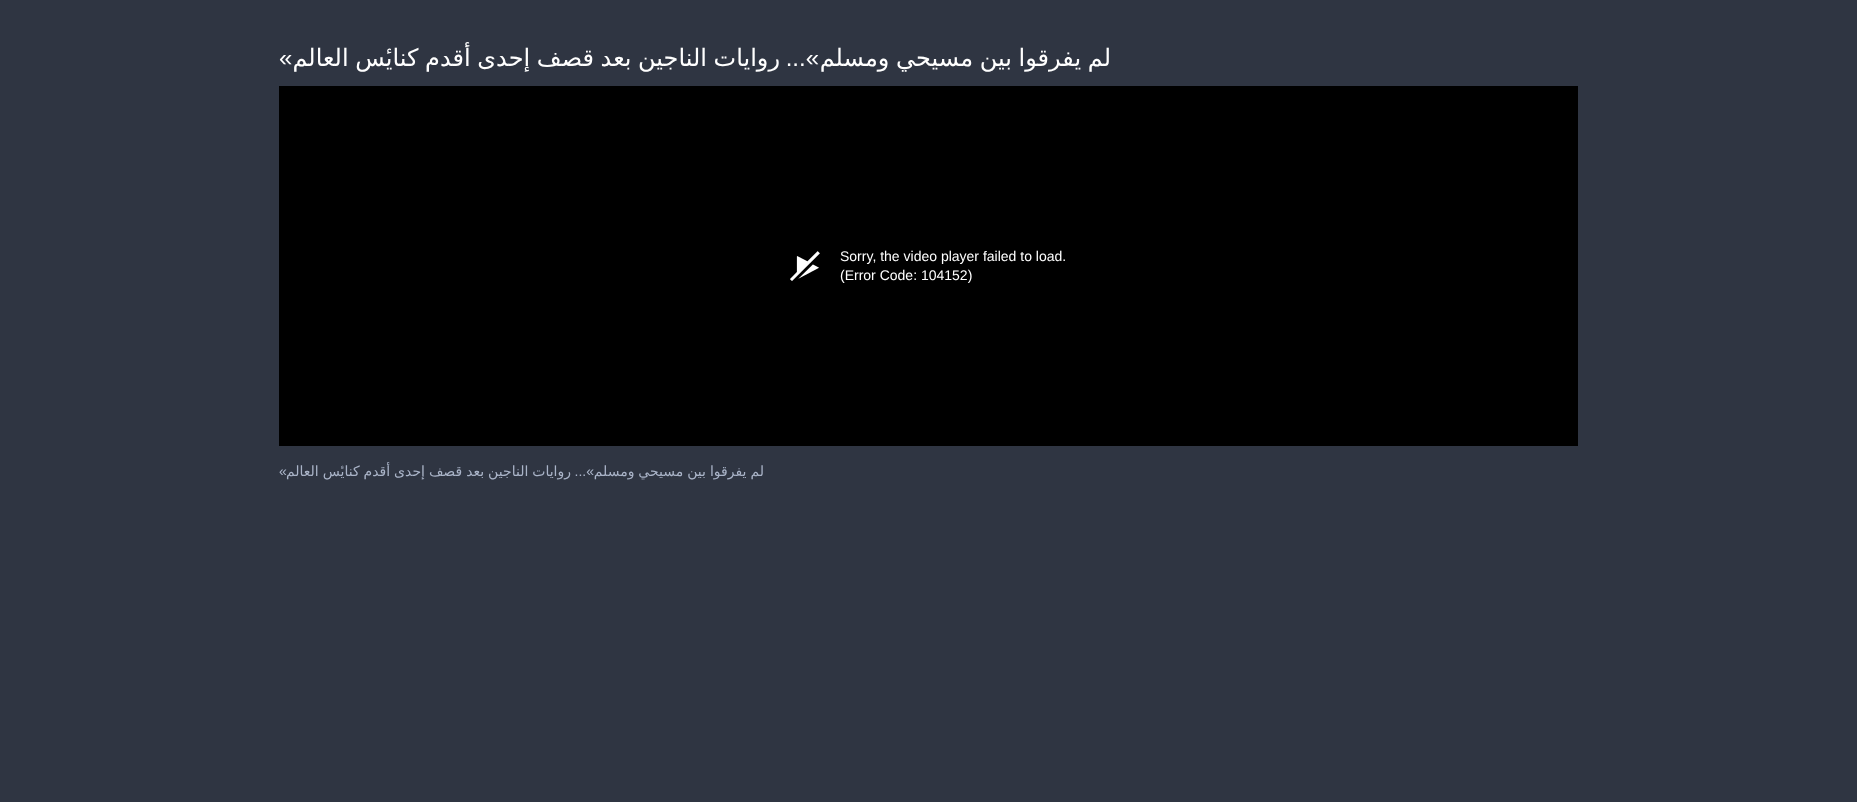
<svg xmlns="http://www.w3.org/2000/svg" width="1857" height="802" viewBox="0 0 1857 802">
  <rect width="100%" height="100%" fill="#2f3542"/>
  <path d="M279 86h1299v360H279z" fill="#000"/>
  <image x="790" y="251" width="30" height="30" href="img/1.png"/>
  <text x="1111" y="66" word-spacing="-1" font-family="DejaVu Sans" font-size="24" direction="rtl" fill="#fff">لم يفرقوا بين مسيحي ومسلم</text>
  <text x="819" y="66" font-family="Liberation Sans" font-size="24" direction="rtl" fill="#fff">»...</text>
  <text x="780" y="66" word-spacing="-1" font-family="DejaVu Sans" font-size="24" direction="rtl" fill="#fff">روايات الناجين بعد قصف إحدى أقدم كنائس العالم</text>
  <text x="279" y="66" font-family="Liberation Sans" font-size="24" fill="#fff">«</text>
  <g font-family="Liberation Sans" font-size="14" fill="#fff">
    <text x="840" y="261">Sorry, the video player failed to load.</text>
    <text x="840" y="280">(Error Code: 104152)</text>
  </g>
  <text x="764" y="476" word-spacing="-0.5" font-family="DejaVu Sans" font-size="14" direction="rtl" fill="#aab4c8">لم يفرقوا بين مسيحي ومسلم</text>
  <text x="594" y="476" font-family="Liberation Sans" font-size="14" direction="rtl" fill="#aab4c8">»...</text>
  <text x="571" y="476" word-spacing="-0.5" font-family="DejaVu Sans" font-size="14" direction="rtl" fill="#aab4c8">روايات الناجين بعد قصف إحدى أقدم كنائس العالم</text>
  <text x="279" y="476" font-family="Liberation Sans" font-size="14" fill="#aab4c8">«</text>
</svg>
